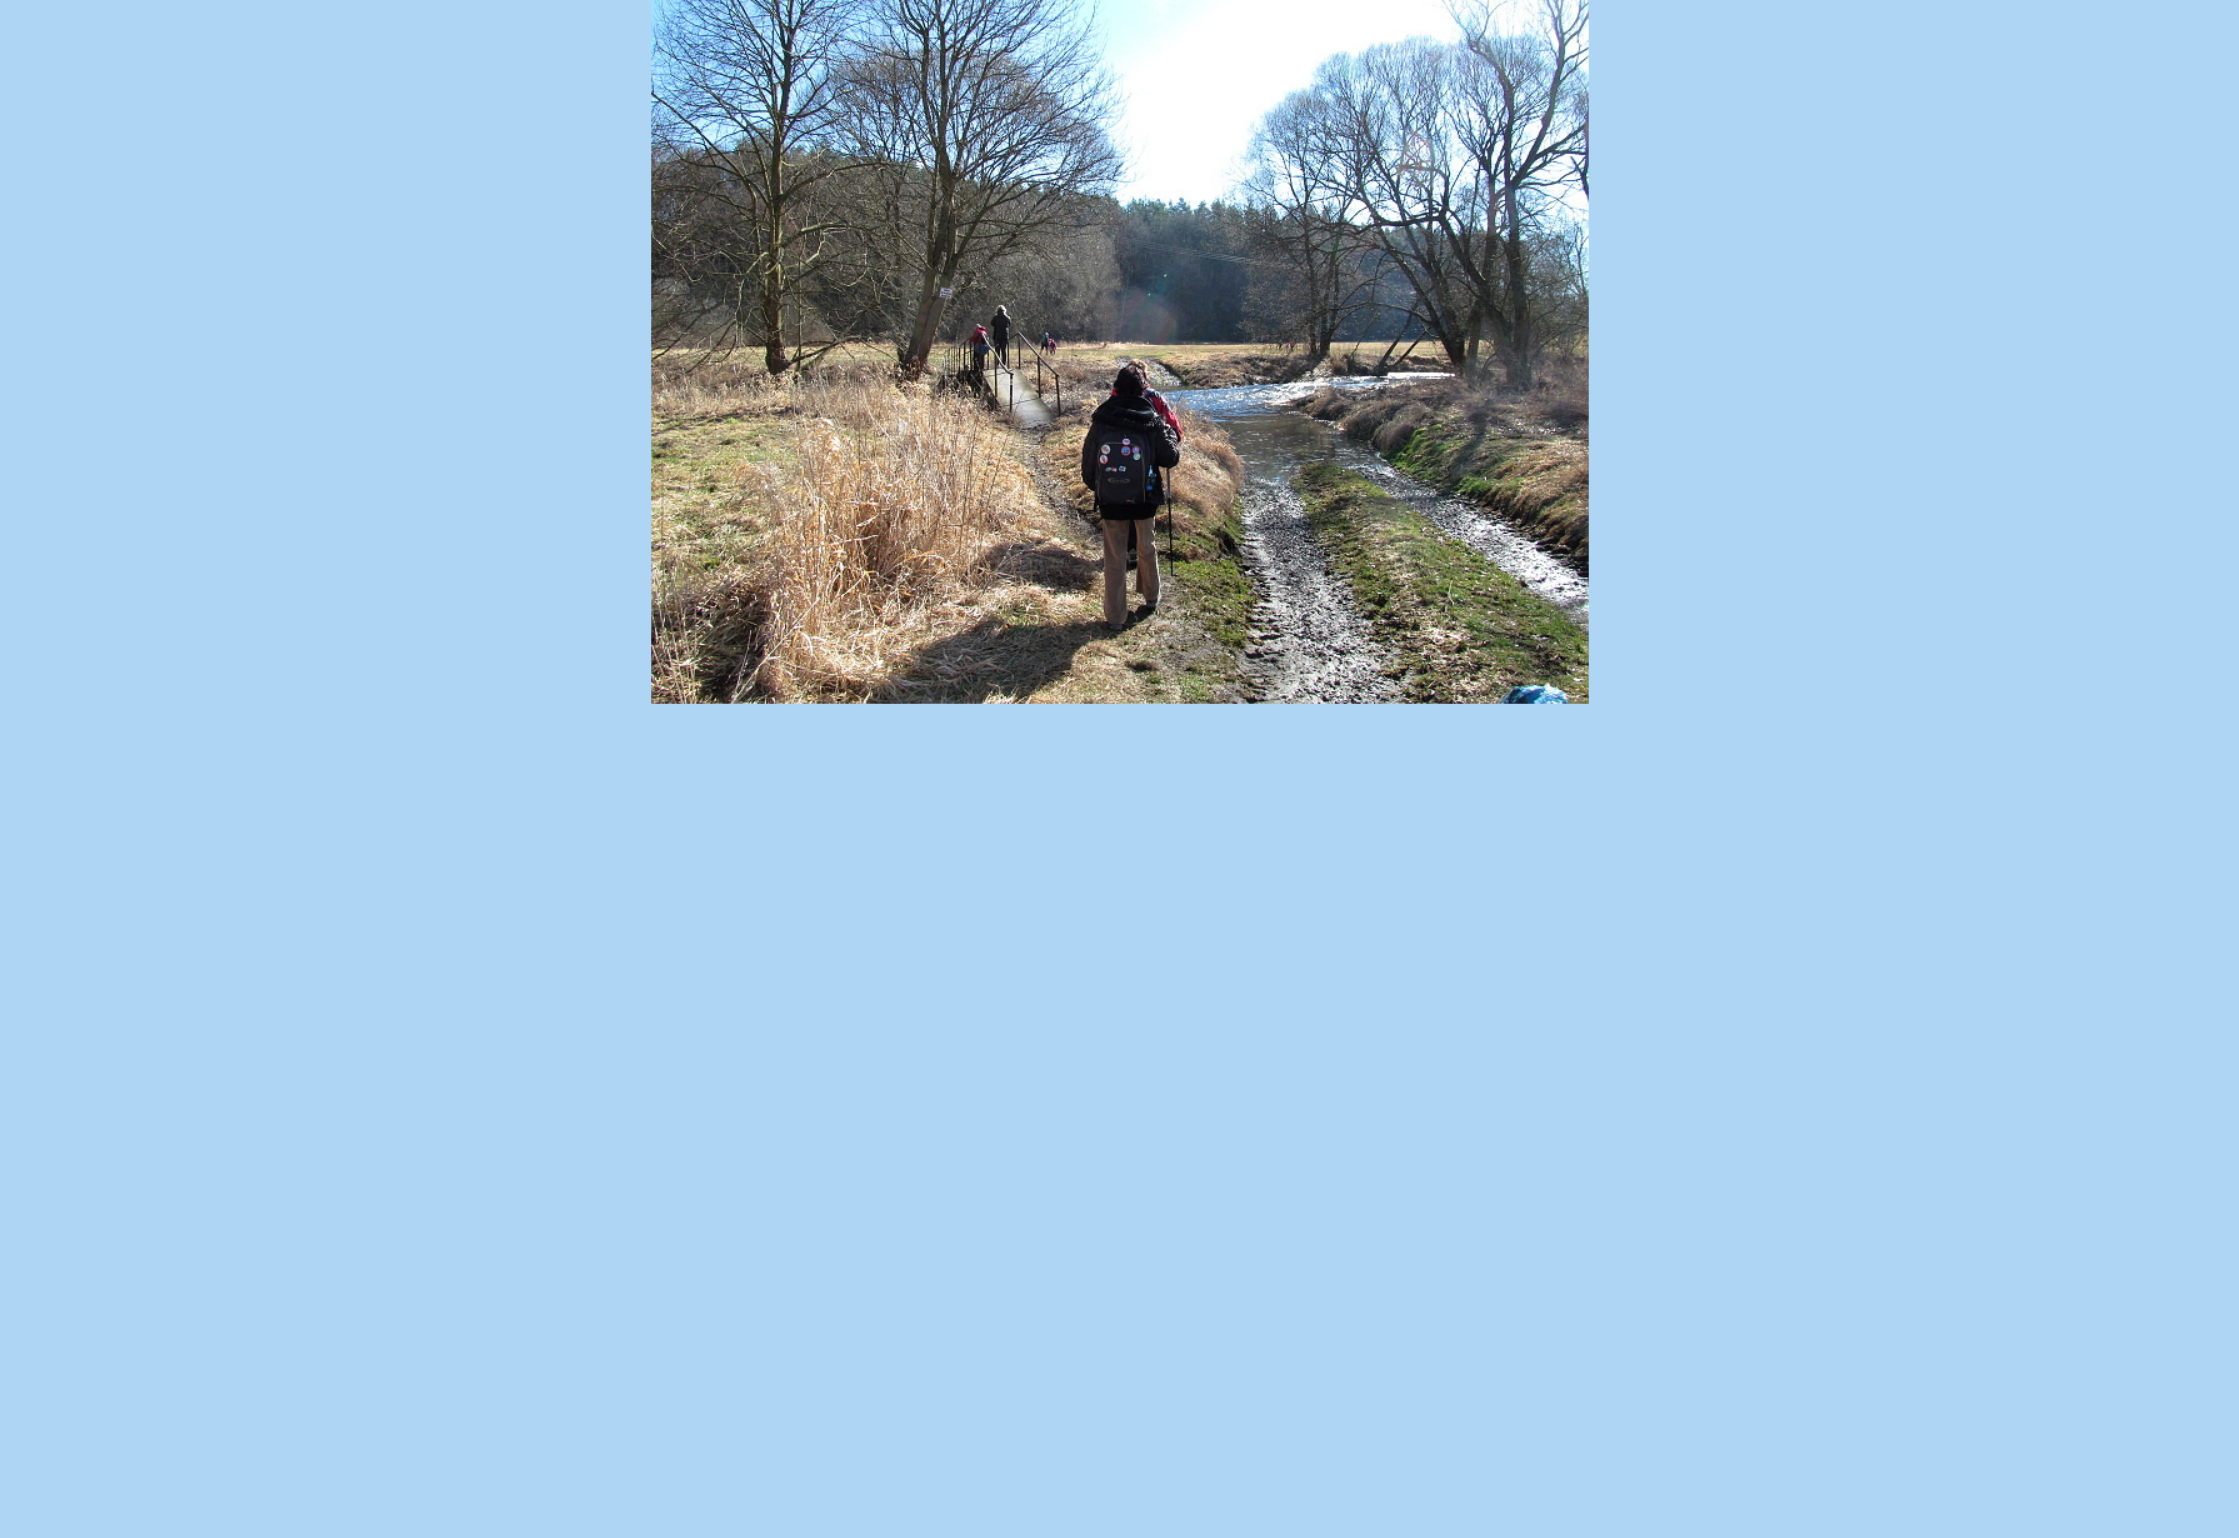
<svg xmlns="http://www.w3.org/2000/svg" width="2239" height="1538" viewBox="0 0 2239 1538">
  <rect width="100%" height="100%" fill="#afd5f4"/>
  <image x="651" y="0" width="938" height="704" href="img/1.png"/>
</svg>
